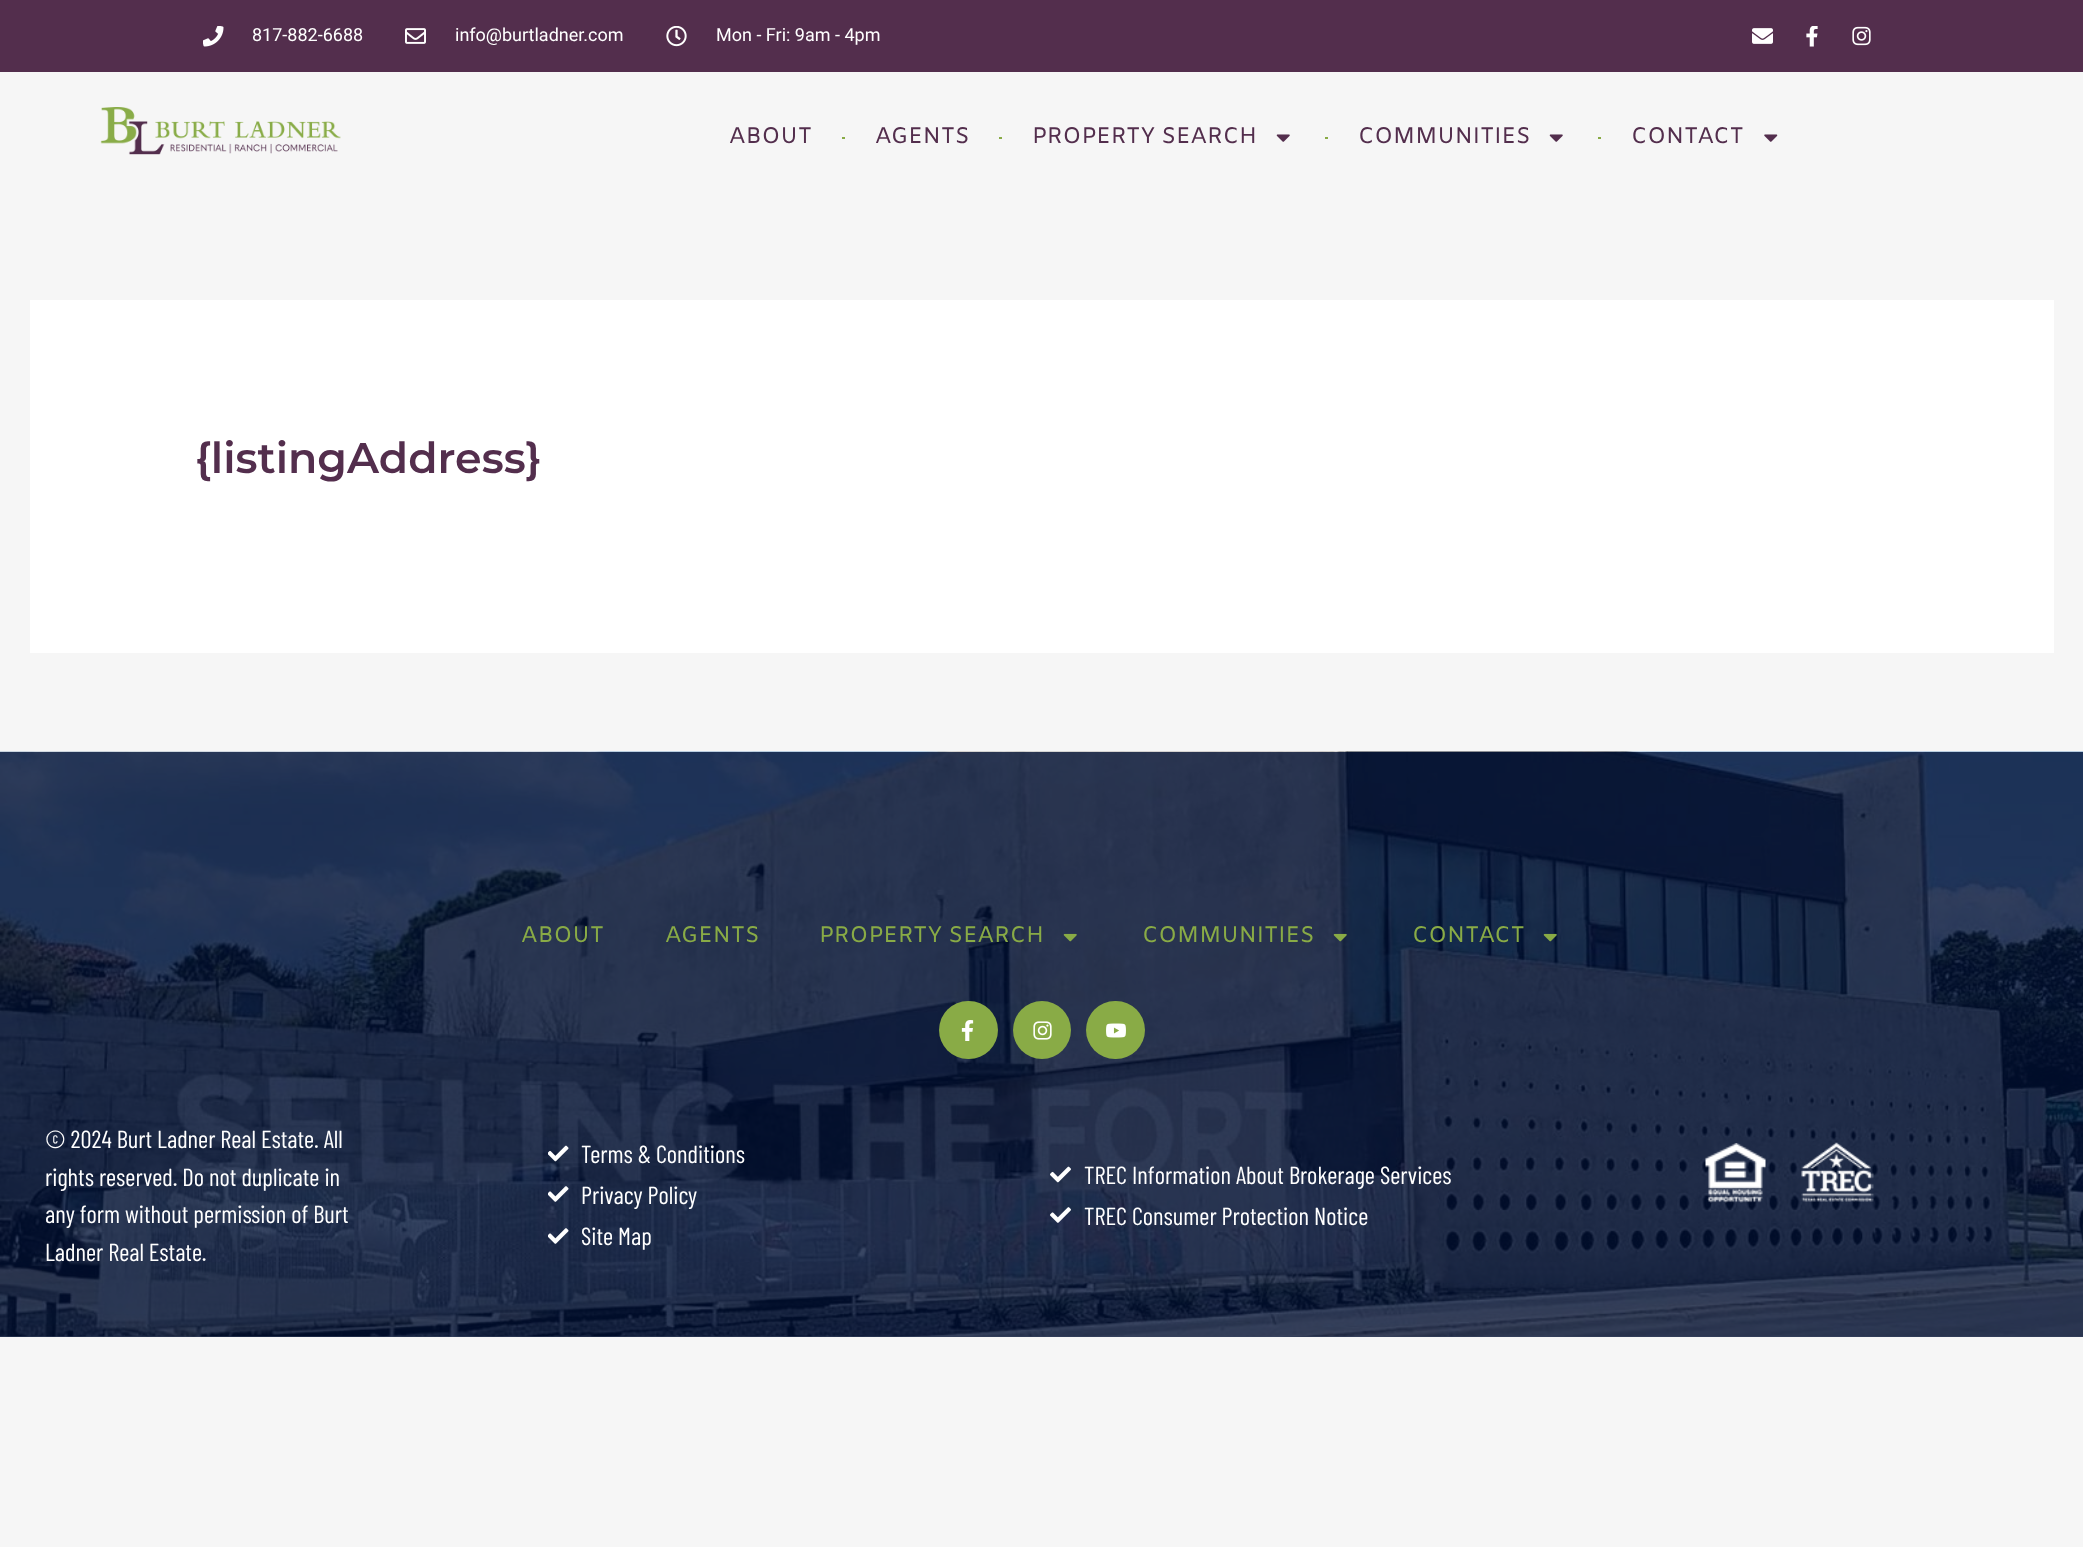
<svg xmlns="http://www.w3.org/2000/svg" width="2083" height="1547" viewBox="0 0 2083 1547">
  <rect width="100%" height="100%" fill="#f6f6f6"/>
  <path d="M0 1336h2083v1H0z" fill="#394561"/>
  <path d="M0 0h2083v72H0z" fill="#532e4d"/>
  <image x="203" y="26" width="21" height="21" href="img/1.png"/>
  <image x="405" y="28" width="21" height="16" href="img/2.png"/>
  <image x="666" y="26" width="21" height="21" href="img/3.png"/>
  <image x="1752" y="28" width="21" height="16" href="img/4.png"/>
  <image x="1806" y="26" width="12" height="21" href="img/5.png"/>
  <image x="1852" y="26" width="19" height="20" href="img/6.png"/>
  <image x="100" y="107" width="241" height="48" href="img/7.png"/>
  <path d="M842 137h3v2H842z" fill="#89ab46"/>
  <path d="M999 137h3v2H999z" fill="#89ab46"/>
  <image x="1276" y="134" width="14" height="8" href="img/8.png"/>
  <path d="M1325 137h3v2H1325z" fill="#89ab46"/>
  <image x="1549" y="134" width="14" height="8" href="img/8.png"/>
  <path d="M1598 137h3v2H1598z" fill="#89ab46"/>
  <image x="1764" y="134" width="14" height="8" href="img/9.png"/>
  <path d="M30 300h2024v353H30z" fill="#fff"/>
  <image x="0" y="751" width="2083" height="586" href="img/10.png"/>
  <image x="1063" y="933" width="14" height="9" href="img/11.png"/>
  <image x="1333" y="933" width="14" height="9" href="img/12.png"/>
  <image x="1543" y="933" width="14" height="9" href="img/13.png"/>
  <rect x="939" y="1001" width="59" height="58" rx="29" fill="#89ab46"/>
  <image x="961" y="1020" width="13" height="21" href="img/14.png"/>
  <circle cx="1042" cy="1030" r="29" fill="#89ab46"/>
  <image x="1033" y="1021" width="19" height="19" href="img/15.png"/>
  <rect x="1086" y="1001" width="59" height="58" rx="29" fill="#89ab46"/>
  <image x="1106" y="1023" width="20" height="15" href="img/16.png"/>
  <image x="548" y="1145" width="21" height="17" href="img/17.png"/>
  <image x="548" y="1186" width="21" height="16" href="img/18.png"/>
  <image x="548" y="1228" width="21" height="16" href="img/19.png"/>
  <image x="1050" y="1166" width="21" height="17" href="img/20.png"/>
  <image x="1050" y="1207" width="21" height="16" href="img/21.png"/>
  <image x="1705" y="1143" width="61" height="60" href="img/22.png"/>
  <image x="1801" y="1142" width="73" height="60" href="img/23.png"/>
  <g font-family="Roboto" font-size="18" fill="#fff">
    <text x="252" y="41">817-882-6688</text>
    <text x="455" y="41">info@burtladner.com</text>
    <text x="716" y="41">Mon - Fri: 9am - 4pm</text>
  </g>
  <g font-family="Amiko" font-size="22.5" fill="#532e4d">
    <text x="729" y="143">ABOUT</text>
    <text x="875" y="143">AGENTS</text>
    <text x="1032" y="143">PROPERTY SEARCH</text>
    <text x="1358" y="143">COMMUNITIES</text>
    <text x="1631" y="143">CONTACT</text>
  </g>
  <text x="195" y="473" font-family="Montserrat" font-size="42.75" font-weight="600" fill="#532e4d">{listingAddress}</text>
  <g font-family="Amiko" font-size="22.5" fill="#89ab46">
    <text x="521" y="942">ABOUT</text>
    <text x="665" y="942">AGENTS</text>
    <text x="819" y="942">PROPERTY SEARCH</text>
    <text x="1142" y="942">COMMUNITIES</text>
    <text x="1412" y="942">CONTACT</text>
  </g>
  <g font-family="Barlow Condensed" font-size="24.75" fill="#fff">
    <text x="45" y="1148">© 2024 Burt Ladner Real Estate. All</text>
    <text x="45" y="1186">rights reserved. Do not duplicate in</text>
    <text x="45" y="1223">any form without permission of Burt</text>
    <text x="45" y="1261">Ladner Real Estate.</text>
    <text x="581" y="1163">Terms &amp; Conditions</text>
    <text x="581" y="1204">Privacy Policy</text>
    <text x="581" y="1245">Site Map</text>
    <text x="1084" y="1184">TREC Information About Brokerage Services</text>
    <text x="1084" y="1225">TREC Consumer Protection Notice</text>
  </g>
</svg>
